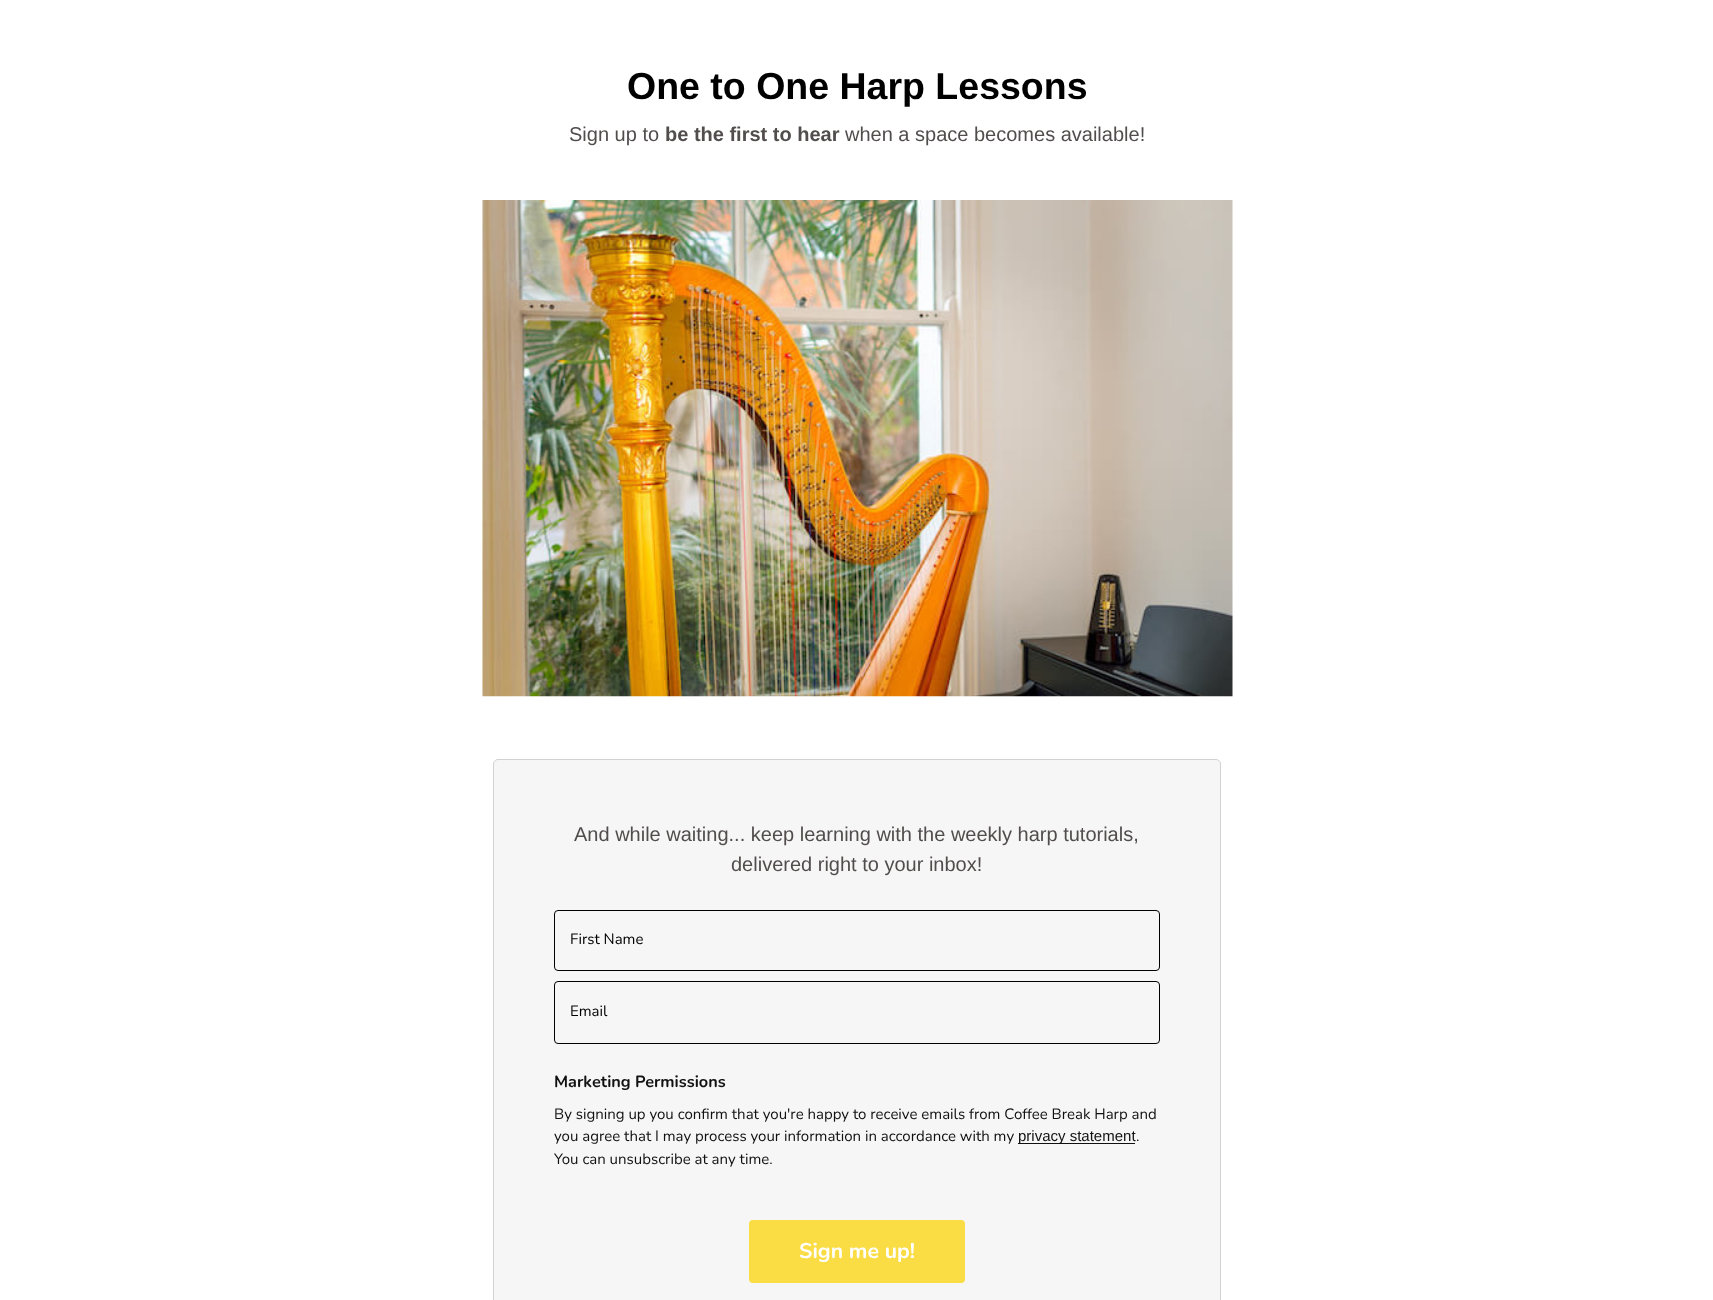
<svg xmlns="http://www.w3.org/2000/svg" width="1713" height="1300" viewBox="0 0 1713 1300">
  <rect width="100%" height="100%" fill="#fff"/>
  <image x="482" y="200" width="751" height="497" href="img/1.png"/>
  <rect x="493.5" y="759.5" width="727" height="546" rx="4.5" fill="#f6f6f6" stroke="#d1d3d3"/>
  <rect x="554.5" y="910.5" width="605" height="60" rx="3.5" fill="none" stroke="#000"/>
  <rect x="554.5" y="981.5" width="605" height="62" rx="3.5" fill="none" stroke="#000"/>
  <path d="M1018 1143h117v1H1018z" fill="#111"/>
  <rect x="749" y="1220" width="216" height="63" rx="4" fill="#fadc44"/>
  <text x="627" y="99" font-family="Liberation Sans" font-size="37.5" font-weight="bold" fill="#000">One to One Harp Lessons</text>
  <text x="569" y="141" font-family="Liberation Sans" font-size="20" fill="#524d4d">Sign up to</text>
  <text x="665" y="141" font-family="Liberation Sans" font-size="20" font-weight="bold" fill="#524d4d">be the first to hear</text>
  <g font-family="Liberation Sans" font-size="20" fill="#524d4d">
    <text x="845" y="141">when a space becomes available!</text>
    <text x="574" y="841">And while waiting... keep learning with the weekly harp tutorials,</text>
    <text x="731" y="871">delivered right to your inbox!</text>
  </g>
  <g font-family="Nunito" font-size="15" fill="#000">
    <text x="570" y="944">First Name</text>
    <text x="570" y="1016">Email</text>
  </g>
  <text x="554" y="1087" font-family="Nunito" font-size="16.25" font-weight="bold" fill="#111">Marketing Permissions</text>
  <g font-family="Nunito" font-size="15" fill="#111">
    <text x="554" y="1119">By signing up you confirm that you're happy to receive emails from Coffee Break Harp and</text>
    <text x="554" y="1141">you agree that I may process your information in accordance with my</text>
  </g>
  <text x="1018" y="1141" font-family="Liberation Sans" font-size="15" fill="#111">privacy statement</text>
  <g font-family="Nunito" font-size="15" fill="#111">
    <text x="1136" y="1141">.</text>
    <text x="554" y="1164">You can unsubscribe at any time.</text>
  </g>
  <text x="799" y="1258" font-family="Nunito" font-size="21.25" font-weight="bold" fill="#fff">Sign me up!</text>
</svg>
